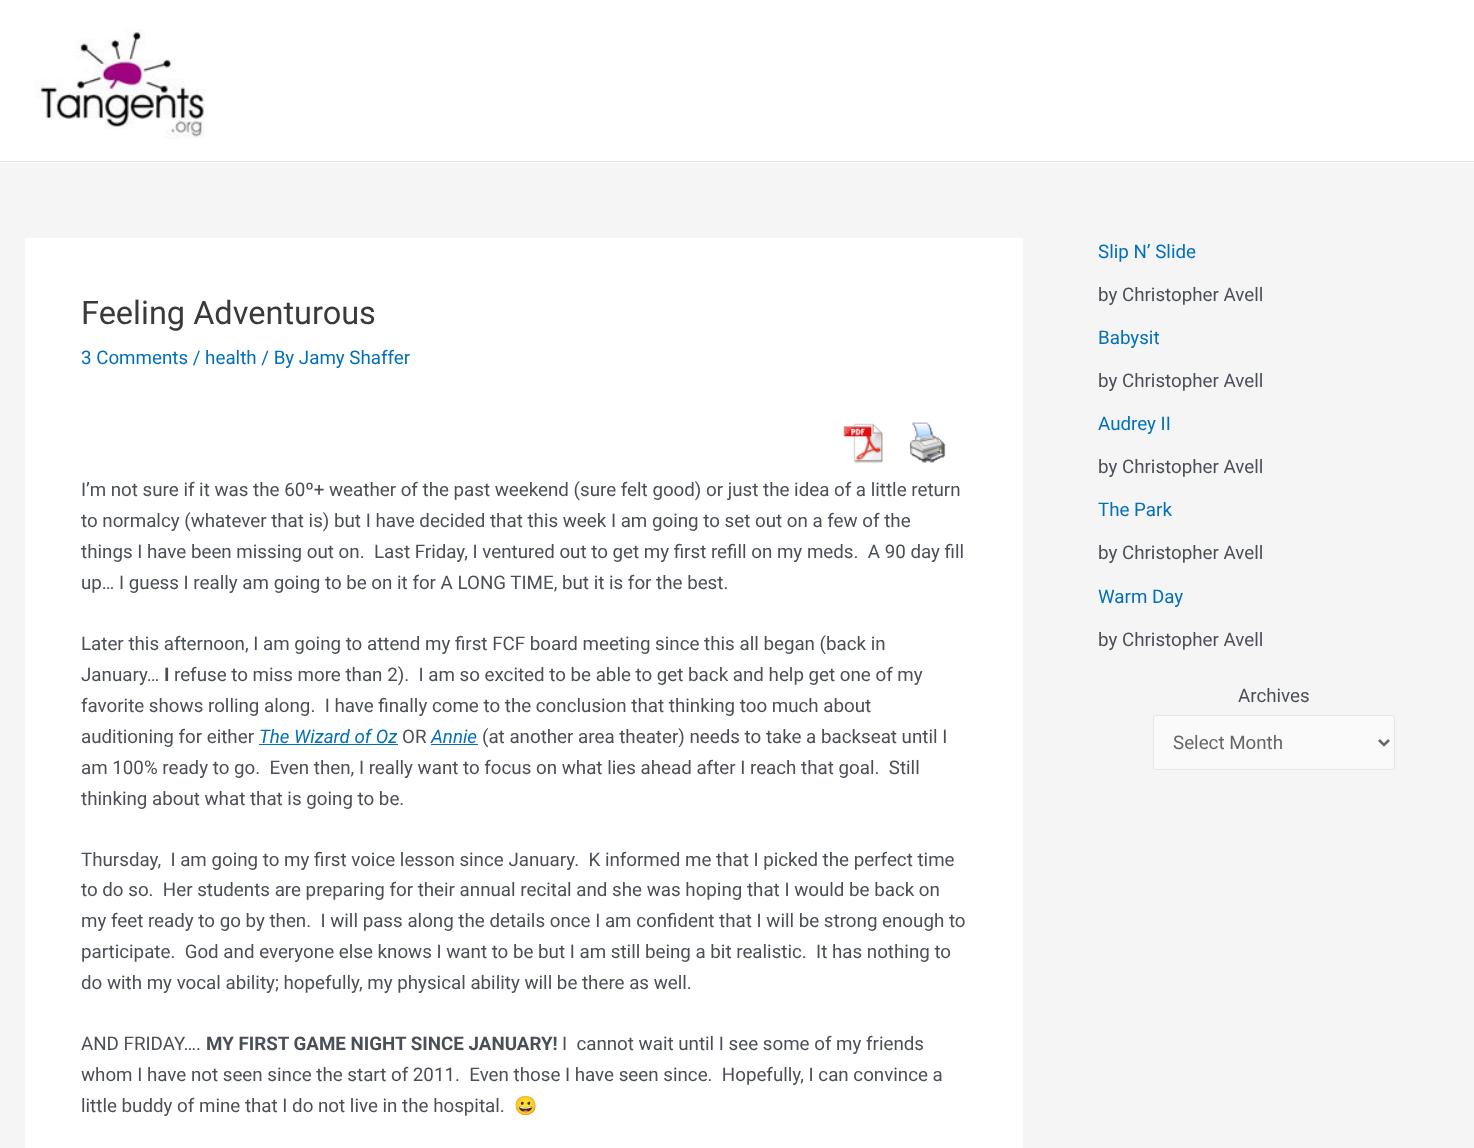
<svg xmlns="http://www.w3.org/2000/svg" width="1474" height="1148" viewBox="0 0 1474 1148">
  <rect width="100%" height="100%" fill="#f5f5f5"/>
  <path d="M0 0h1474v163H0z" fill="#fff"/>
  <path d="M0 161h1474v1H0z" fill="#e5e5e5"/>
  <image x="35" y="29" width="170" height="110" href="img/1.png"/>
  <path d="M25 238h998v910H25z" fill="#fff"/>
  <image x="843" y="423" width="40" height="40" href="img/2.png"/>
  <image x="909" y="422" width="37" height="41" href="img/3.png"/>
  <path d="M259 744h139v1H259z" fill="#0170b9"/>
  <path d="M431 744h47v1H431z" fill="#0170b9"/>
  <rect x="1153.5" y="715.5" width="241" height="54" rx="2" fill="#fafafa" stroke="#e5e5e5"/>
  <path d="M1379 740L1384 745L1389 740" fill="none" stroke="#666" stroke-width="2.5"/>
  <text x="81" y="324" font-family="Roboto" font-size="32.5" fill="#3a3a3a">Feeling Adventurous</text>
  <text x="81" y="364" font-family="Roboto" font-size="18.75" fill="#0170b9">3 Comments / health / By Jamy Shaffer</text>
  <g font-family="Roboto" font-size="18.75" fill="#4b4f58">
    <text x="81" y="496">I’m not sure if it was the 60º+ weather of the past weekend (sure felt good) or just the idea of a little return</text>
    <text x="81" y="527">to normalcy (whatever that is) but I have decided that this week I am going to set out on a few of the</text>
    <text x="81" y="558" xml:space="preserve">things I have been missing out on.  Last Friday, I ventured out to get my first refill on my meds.  A 90 day fill</text>
    <text x="81" y="589">up… I guess I really am going to be on it for A LONG TIME, but it is for the best.</text>
    <text x="81" y="650">Later this afternoon, I am going to attend my first FCF board meeting since this all began (back in</text>
    <text x="81" y="681">January…</text>
  </g>
  <text x="164" y="681" font-family="Roboto" font-size="18.75" font-weight="bold" fill="#4b4f58">I</text>
  <g font-family="Roboto" font-size="18.75" fill="#4b4f58">
    <text x="174" y="681" xml:space="preserve">refuse to miss more than 2).  I am so excited to be able to get back and help get one of my</text>
    <text x="81" y="712" xml:space="preserve">favorite shows rolling along.  I have finally come to the conclusion that thinking too much about</text>
    <text x="81" y="743">auditioning for either</text>
  </g>
  <text x="259" y="743" font-family="Roboto" font-size="18.75" font-style="italic" fill="#0170b9">The Wizard of Oz</text>
  <text x="402" y="743" font-family="Roboto" font-size="18.75" fill="#4b4f58">OR</text>
  <text x="431" y="743" font-family="Roboto" font-size="18.75" font-style="italic" fill="#0170b9">Annie</text>
  <g font-family="Roboto" font-size="18.75" fill="#4b4f58">
    <text x="482" y="743">(at another area theater) needs to take a backseat until I</text>
    <text x="81" y="774" xml:space="preserve">am 100% ready to go.  Even then, I really want to focus on what lies ahead after I reach that goal.  Still</text>
    <text x="81" y="805">thinking about what that is going to be.</text>
    <text x="81" y="866" xml:space="preserve">Thursday,  I am going to my first voice lesson since January.  K informed me that I picked the perfect time</text>
    <text x="81" y="896" xml:space="preserve">to do so.  Her students are preparing for their annual recital and she was hoping that I would be back on</text>
    <text x="81" y="927" xml:space="preserve">my feet ready to go by then.  I will pass along the details once I am confident that I will be strong enough to</text>
    <text x="81" y="958" xml:space="preserve">participate.  God and everyone else knows I want to be but I am still being a bit realistic.  It has nothing to</text>
    <text x="81" y="989">do with my vocal ability; hopefully, my physical ability will be there as well.</text>
    <text x="81" y="1050">AND FRIDAY….</text>
  </g>
  <text x="206" y="1050" font-family="Roboto" font-size="18.75" font-weight="bold" fill="#4b4f58">MY FIRST GAME NIGHT SINCE JANUARY!</text>
  <g font-family="Roboto" font-size="18.75" fill="#4b4f58">
    <text x="562" y="1050" xml:space="preserve">I  cannot wait until I see some of my friends</text>
    <text x="81" y="1081" xml:space="preserve">whom I have not seen since the start of 2011.  Even those I have seen since.  Hopefully, I can convince a</text>
    <text x="81" y="1112">little buddy of mine that I do not live in the hospital.</text>
  </g>
  <text x="514" y="1112" font-family="Noto Color Emoji" font-size="18.75" fill="#4b4f58">😀</text>
  <text x="1098" y="258" font-family="Roboto" font-size="18.75" fill="#0170b9">Slip N’ Slide</text>
  <text x="1098" y="301" font-family="Roboto" font-size="18.75" fill="#4b4f58">by Christopher Avell</text>
  <text x="1098" y="344" font-family="Roboto" font-size="18.75" fill="#0170b9">Babysit</text>
  <text x="1098" y="387" font-family="Roboto" font-size="18.75" fill="#4b4f58">by Christopher Avell</text>
  <text x="1098" y="430" font-family="Roboto" font-size="18.75" fill="#0170b9">Audrey II</text>
  <text x="1098" y="473" font-family="Roboto" font-size="18.75" fill="#4b4f58">by Christopher Avell</text>
  <text x="1098" y="516" font-family="Roboto" font-size="18.75" fill="#0170b9">The Park</text>
  <text x="1098" y="559" font-family="Roboto" font-size="18.75" fill="#4b4f58">by Christopher Avell</text>
  <text x="1098" y="603" font-family="Roboto" font-size="18.75" fill="#0170b9">Warm Day</text>
  <g font-family="Roboto" font-size="18.75" fill="#4b4f58">
    <text x="1098" y="646">by Christopher Avell</text>
    <text x="1238" y="702">Archives</text>
  </g>
  <text x="1173" y="749" font-family="Roboto" font-size="18.75" fill="#666">Select Month</text>
</svg>
